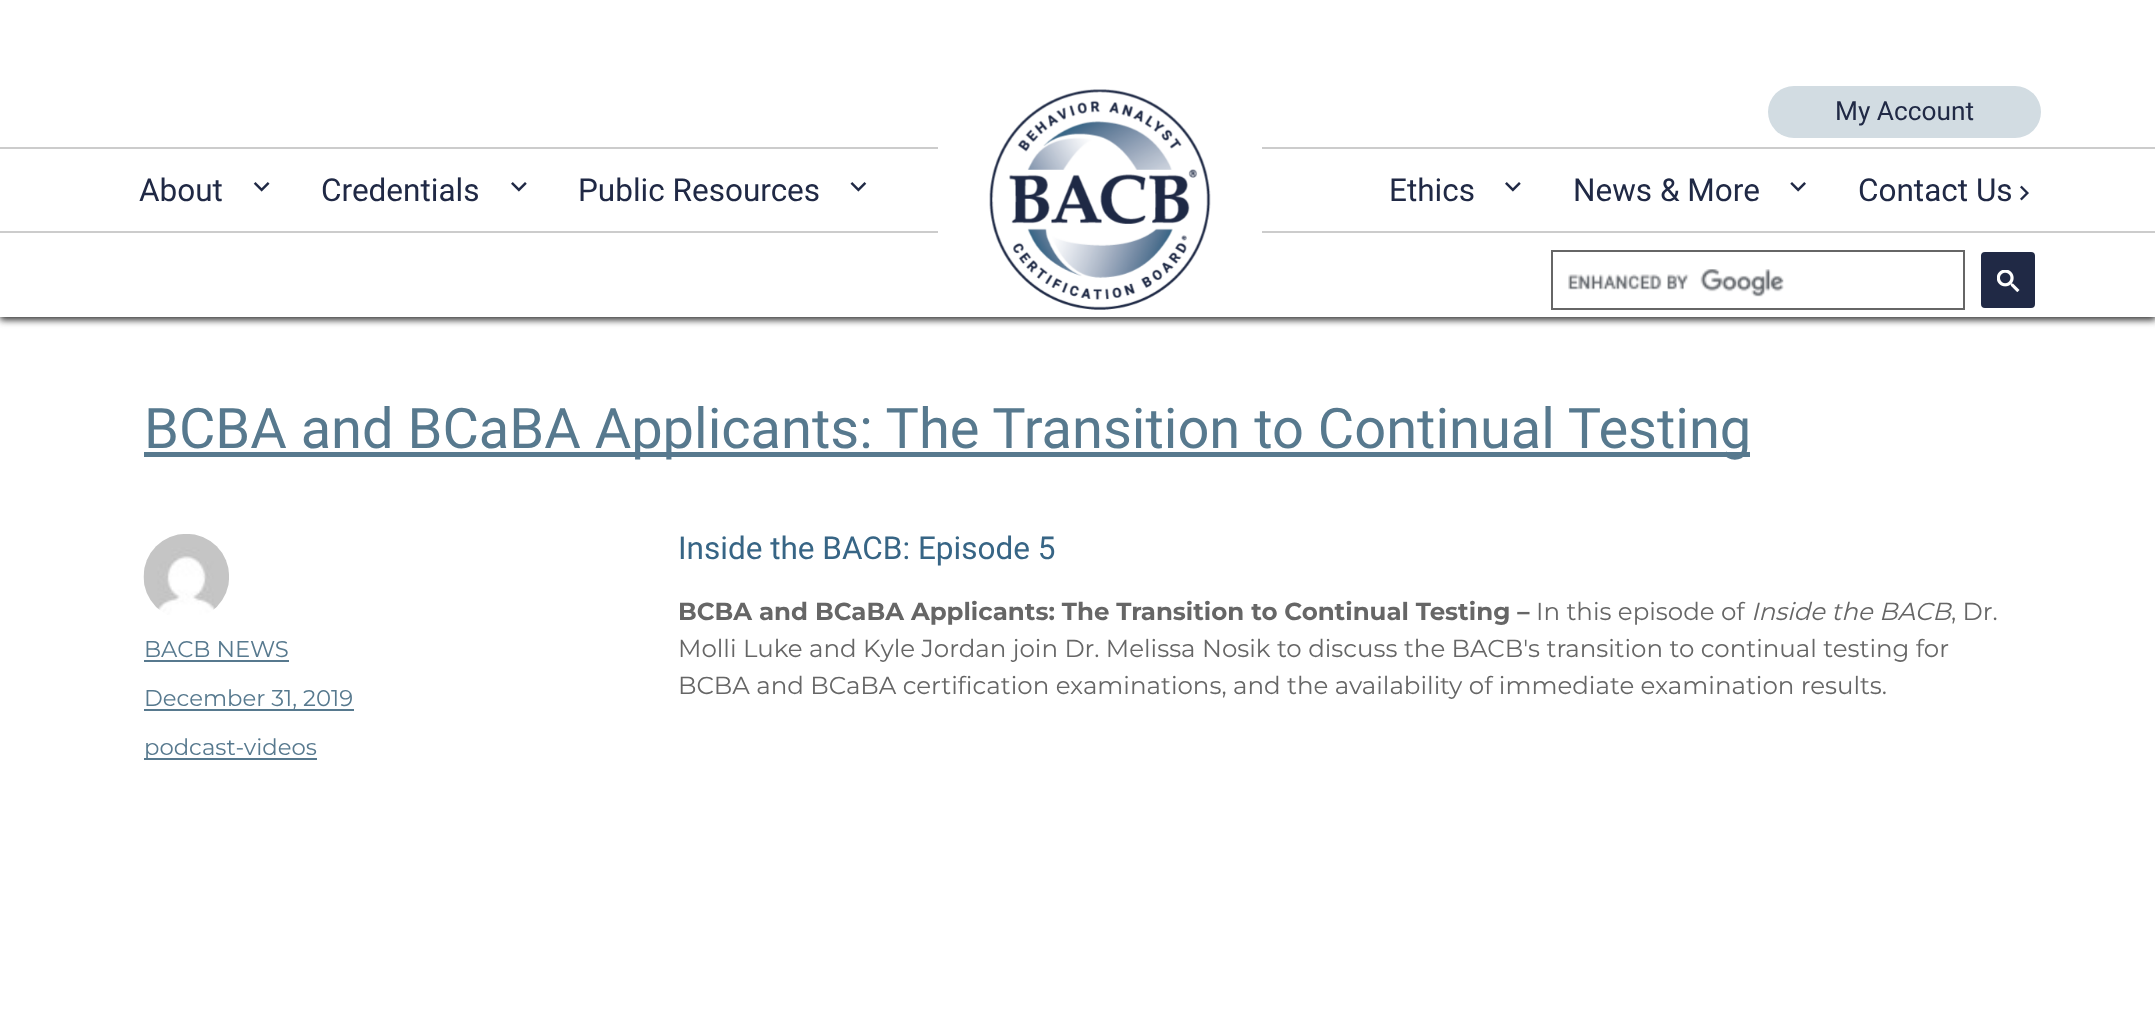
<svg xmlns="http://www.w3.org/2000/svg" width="2155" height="1025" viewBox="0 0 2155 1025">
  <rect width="100%" height="100%" fill="#fff"/>
  <path d="M0 4h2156v316H0z" fill="#333" filter="blur(3.5px)"/>
  <path d="M0 0h2155v317H0z" fill="#fff"/>
  <path d="M0 147h2155v2H0z" fill="#ccc"/>
  <path d="M0 231h2155v2H0z" fill="#ccc"/>
  <path d="M938 147h324v86H938z" fill="#fff"/>
  <image x="989" y="89" width="222" height="221" href="img/1.png"/>
  <rect x="1768" y="86" width="273" height="52" rx="26" fill="#d2dce2"/>
  <image x="253" y="182" width="17" height="10" href="img/2.png"/>
  <image x="511" y="182" width="16" height="10" href="img/3.png"/>
  <image x="850" y="182" width="17" height="10" href="img/4.png"/>
  <image x="1505" y="182" width="16" height="10" href="img/3.png"/>
  <image x="1790" y="182" width="16" height="10" href="img/5.png"/>
  <image x="2020" y="185" width="9" height="16" href="img/6.png"/>
  <path d="M1552 251h412v58H1552z" fill="none" stroke="#666" stroke-width="2"/>
  <image x="1568" y="269" width="216" height="28" href="img/7.png"/>
  <rect x="1982" y="253" width="52" height="54" rx="3" fill="#202945" stroke="#202945" stroke-width="2"/>
  <image x="1997" y="270" width="23" height="22" href="img/8.png"/>
  <path d="M144 452h1606v5H144z" fill="#57798e"/>
  <image x="143" y="534" width="86" height="81" href="img/9.png"/>
  <path d="M144 660h145v2H144z" fill="#57798e"/>
  <path d="M144 709h210v2H144z" fill="#57798e"/>
  <path d="M144 758h173v2H144z" fill="#57798e"/>
  <text x="1835" y="120" font-family="Roboto" font-size="26.25" fill="#202945">My Account</text>
  <g font-family="Roboto" font-size="31.5" fill="#202945">
    <text x="139" y="201">About</text>
    <text x="321" y="201">Credentials</text>
    <text x="578" y="201">Public Resources</text>
    <text x="1389" y="201">Ethics</text>
    <text x="1573" y="201">News &amp; More</text>
    <text x="1858" y="201">Contact Us</text>
  </g>
  <text x="144" y="448" font-family="Roboto" font-size="56" fill="#57798e">BCBA and BCaBA Applicants: The Transition to Continual Testing</text>
  <g font-family="Montserrat" font-size="22.75" fill="#57798e">
    <text x="144" y="657">BACB NEWS</text>
    <text x="144" y="706">December 31, 2019</text>
    <text x="144" y="755">podcast-videos</text>
  </g>
  <text x="678" y="559" font-family="Roboto" font-size="31.5" fill="#376585">Inside the BACB: Episode 5</text>
  <text x="678" y="620" font-family="Montserrat" font-size="24.5" font-weight="bold" fill="#666">BCBA and BCaBA Applicants: The Transition to Continual Testing –</text>
  <text x="1536" y="620" font-family="Montserrat" font-size="24.5" fill="#666">In this episode of</text>
  <text x="1751" y="620" font-family="Montserrat" font-size="24.5" font-style="italic" fill="#666">Inside the BACB</text>
  <g font-family="Montserrat" font-size="24.5" fill="#666">
    <text x="1951" y="620">, Dr.</text>
    <text x="678" y="657">Molli Luke and Kyle Jordan join Dr. Melissa Nosik to discuss the BACB's transition to continual testing for</text>
    <text x="678" y="694">BCBA and BCaBA certification examinations, and the availability of immediate examination results.</text>
  </g>
</svg>
